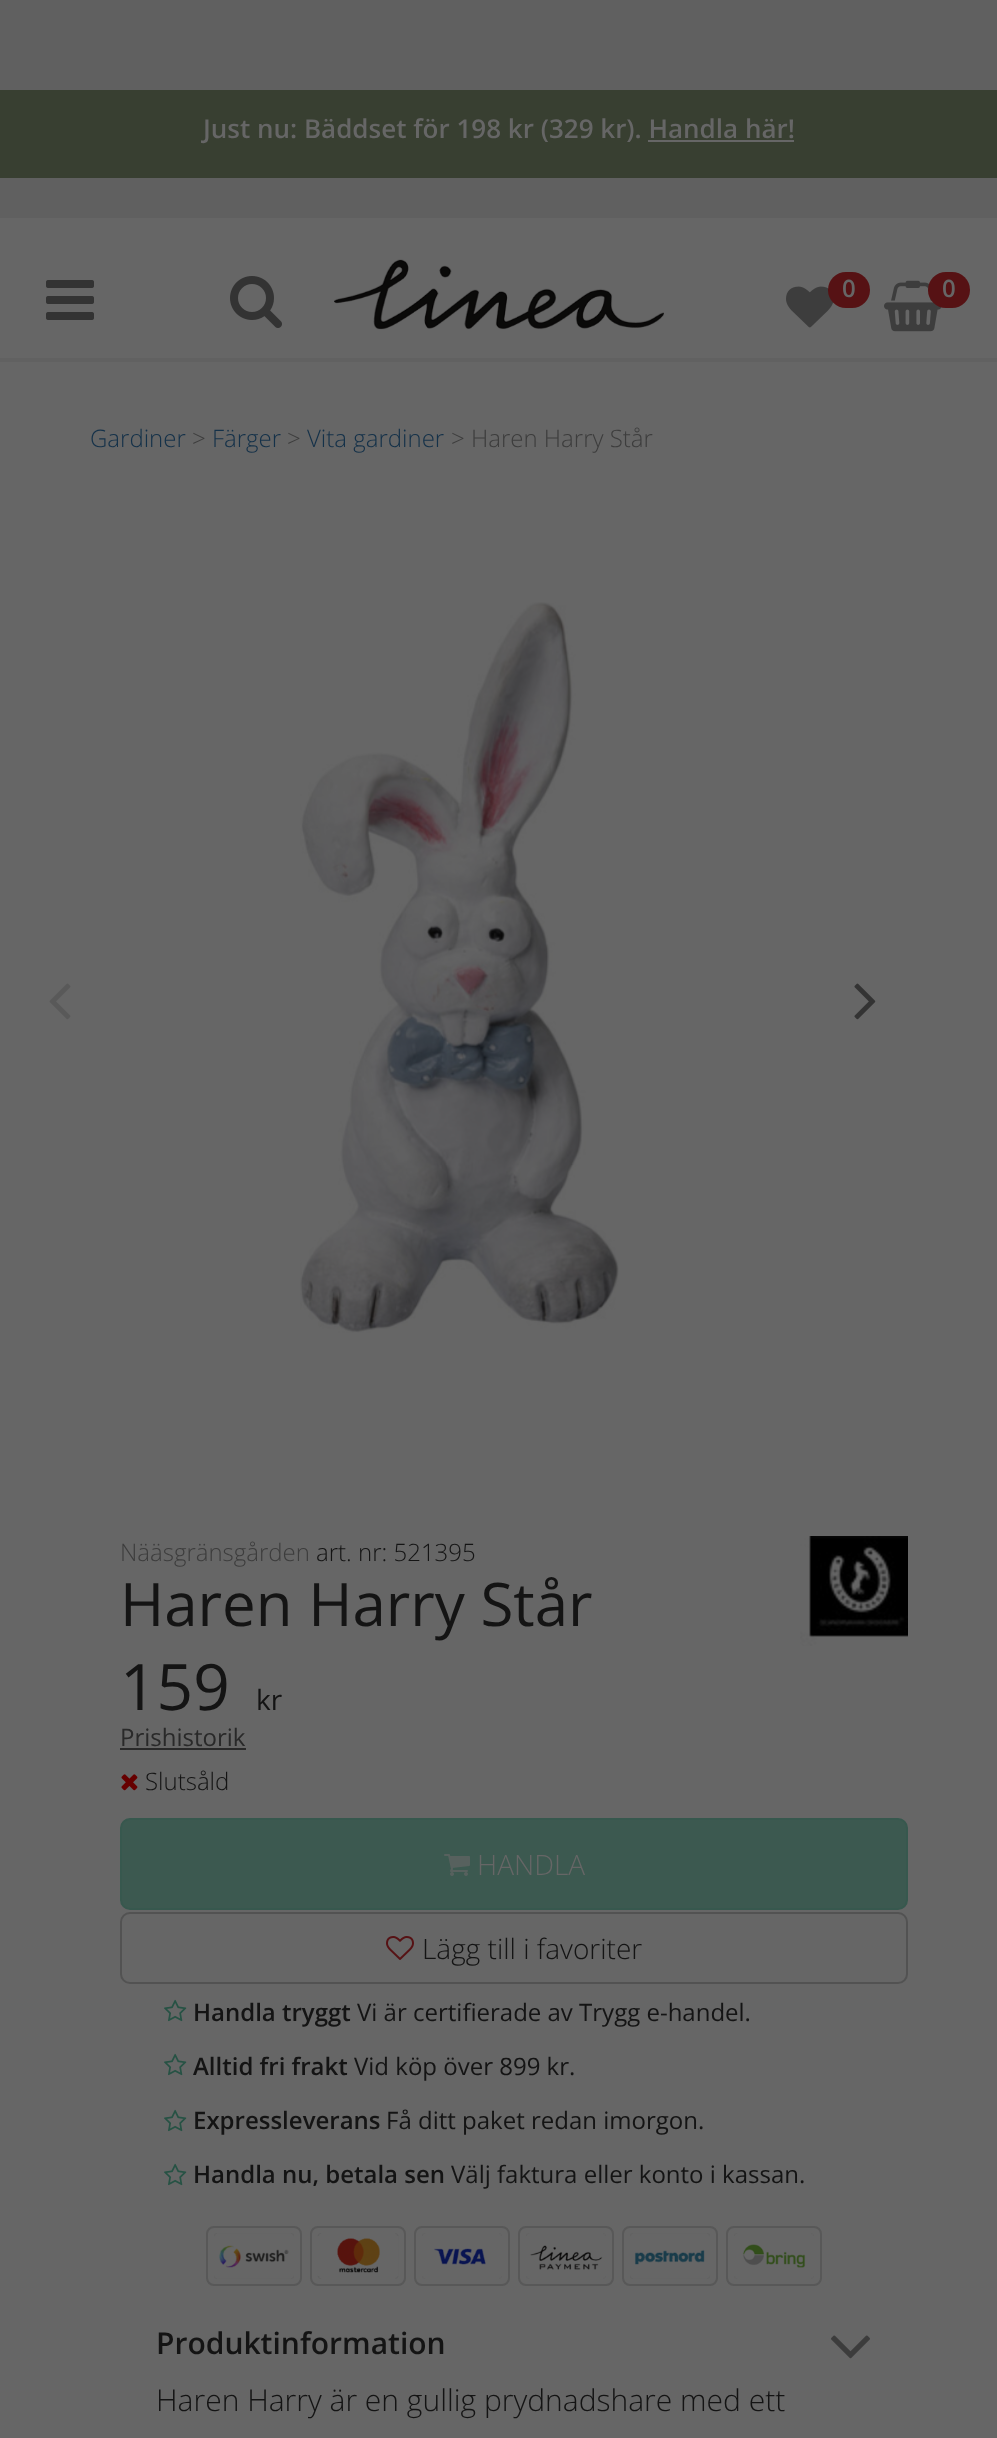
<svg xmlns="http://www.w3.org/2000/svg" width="997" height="2438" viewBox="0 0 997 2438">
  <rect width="100%" height="100%" fill="#666"/>
  <path d="M0 358h997v4H0z" fill="#616161"/>
  <path d="M0 0h997v218H0z" fill="#606060"/>
  <path d="M0 90h997v88H0z" fill="#383f31"/>
  <path d="M648 140h146v2H648z" fill="#666"/>
  <image x="46" y="280" width="48" height="40" href="img/1.png"/>
  <image x="230" y="276" width="52" height="52" href="img/2.png"/>
  <image x="334" y="259" width="330" height="71" href="img/3.png"/>
  <image x="786" y="286" width="48" height="42" href="img/4.png"/>
  <rect x="828" y="272" width="42" height="36" rx="18" fill="#561214"/>
  <image x="884" y="280" width="58" height="52" href="img/5.png"/>
  <rect x="928" y="272" width="42" height="36" rx="18" fill="#561214"/>
  <image x="49" y="983" width="22" height="37" href="img/6.png"/>
  <image x="300" y="602" width="319" height="731" href="img/7.png"/>
  <image x="854" y="983" width="22" height="37" href="img/8.png"/>
  <image x="800" y="1536" width="108" height="110" href="img/9.png"/>
  <path d="M120 1748h126v2H120z" fill="#292929"/>
  <image x="121" y="1774" width="17" height="17" href="img/10.png"/>
  <rect x="121" y="1819" width="786" height="90" rx="9" fill="#3c5950" stroke="#37584e" stroke-width="2"/>
  <image x="444" y="1854" width="26" height="22" href="img/11.png"/>
  <rect x="121" y="1913" width="786" height="70" rx="9" fill="none" stroke="#525252" stroke-width="2"/>
  <image x="386" y="1936" width="28" height="24" href="img/12.png"/>
  <image x="164" y="1999" width="23" height="23" href="img/13.png"/>
  <image x="164" y="2053" width="23" height="23" href="img/13.png"/>
  <image x="164" y="2109" width="23" height="23" href="img/13.png"/>
  <image x="164" y="2163" width="23" height="23" href="img/13.png"/>
  <rect x="207" y="2227" width="94" height="58" rx="7" fill="none" stroke="#585858" stroke-width="2"/>
  <rect x="311" y="2227" width="94" height="58" rx="7" fill="none" stroke="#585858" stroke-width="2"/>
  <rect x="415" y="2227" width="94" height="58" rx="7" fill="none" stroke="#585858" stroke-width="2"/>
  <rect x="519" y="2227" width="94" height="58" rx="7" fill="none" stroke="#585858" stroke-width="2"/>
  <rect x="623" y="2227" width="94" height="58" rx="7" fill="none" stroke="#585858" stroke-width="2"/>
  <rect x="727" y="2227" width="94" height="58" rx="7" fill="none" stroke="#585858" stroke-width="2"/>
  <image x="214" y="2233" width="80" height="46" href="img/14.png"/>
  <image x="317" y="2233" width="82" height="46" href="img/15.png"/>
  <image x="422" y="2233" width="80" height="46" href="img/16.png"/>
  <image x="526" y="2233" width="80" height="46" href="img/17.png"/>
  <image x="630" y="2233" width="80" height="46" href="img/18.png"/>
  <image x="734" y="2233" width="80" height="46" href="img/19.png"/>
  <image x="831" y="2335" width="39" height="24" href="img/20.png"/>
  <text x="203" y="138" font-family="Open Sans" font-size="26" font-weight="600" fill="#666">Just nu: Bäddset för 198 kr (329 kr). Handla här!</text>
  <g font-family="Open Sans" font-size="24" font-weight="600" fill="#666">
    <text x="842" y="297">0</text>
    <text x="942" y="297">0</text>
  </g>
  <text x="90" y="447" font-family="Open Sans" font-size="24" font-weight="300" fill="#143149">Gardiner</text>
  <text x="192" y="447" font-family="Open Sans" font-size="24" font-weight="300" fill="#3d3d3d">&gt;</text>
  <text x="212" y="447" font-family="Open Sans" font-size="24" font-weight="300" fill="#143149">Färger</text>
  <text x="287" y="447" font-family="Open Sans" font-size="24" font-weight="300" fill="#3d3d3d">&gt;</text>
  <text x="307" y="447" font-family="Open Sans" font-size="24" font-weight="300" fill="#143149">Vita gardiner</text>
  <g font-family="Open Sans" font-size="24" font-weight="300" fill="#3d3d3d">
    <text x="451" y="447">&gt; Haren Harry Står</text>
    <text x="120" y="1561">Nääsgränsgården</text>
  </g>
  <text x="316" y="1561" font-family="Open Sans" font-size="24" font-weight="300" fill="#141414">art. nr: 521395</text>
  <text x="120" y="1626" font-family="Open Sans" font-size="60" fill="#141414">Haren Harry Står</text>
  <text x="120" y="1710" font-family="Open Sans" font-size="64" fill="#141414">159</text>
  <text x="256" y="1710" font-family="Open Sans" font-size="28" fill="#141414">kr</text>
  <text x="120" y="1746" font-family="Open Sans" font-size="24" fill="#292929">Prishistorik</text>
  <text x="145" y="1790" font-family="Open Sans" font-size="24" font-weight="300" fill="#141414">Slutsåld</text>
  <text x="477" y="1875" font-family="Open Sans" font-size="28" font-weight="300" fill="#666">HANDLA</text>
  <text x="422" y="1959" font-family="Open Sans" font-size="28" font-weight="300" fill="#141414">Lägg till i favoriter</text>
  <text x="193" y="2021" font-family="Open Sans" font-size="24" font-weight="600" fill="#141414">Handla tryggt</text>
  <text x="357" y="2021" font-family="Open Sans" font-size="24" fill="#141414">Vi är certifierade av Trygg e-handel.</text>
  <text x="193" y="2075" font-family="Open Sans" font-size="24" font-weight="600" fill="#141414">Alltid fri frakt</text>
  <text x="354" y="2075" font-family="Open Sans" font-size="24" fill="#141414">Vid köp över 899 kr.</text>
  <text x="193" y="2129" font-family="Open Sans" font-size="24" font-weight="600" fill="#141414">Expressleverans</text>
  <text x="386" y="2129" font-family="Open Sans" font-size="24" fill="#141414">Få ditt paket redan imorgon.</text>
  <text x="193" y="2183" font-family="Open Sans" font-size="24" font-weight="600" fill="#141414">Handla nu, betala sen</text>
  <text x="451" y="2183" font-family="Open Sans" font-size="24" fill="#141414">Välj faktura eller konto i kassan.</text>
  <text x="156" y="2354" font-family="Open Sans" font-size="30" font-weight="600" fill="#141414">Produktinformation</text>
  <text x="156" y="2411" font-family="Open Sans" font-size="30" font-weight="300" fill="#141414">Haren Harry är en gullig prydnadshare med ett</text>
</svg>
